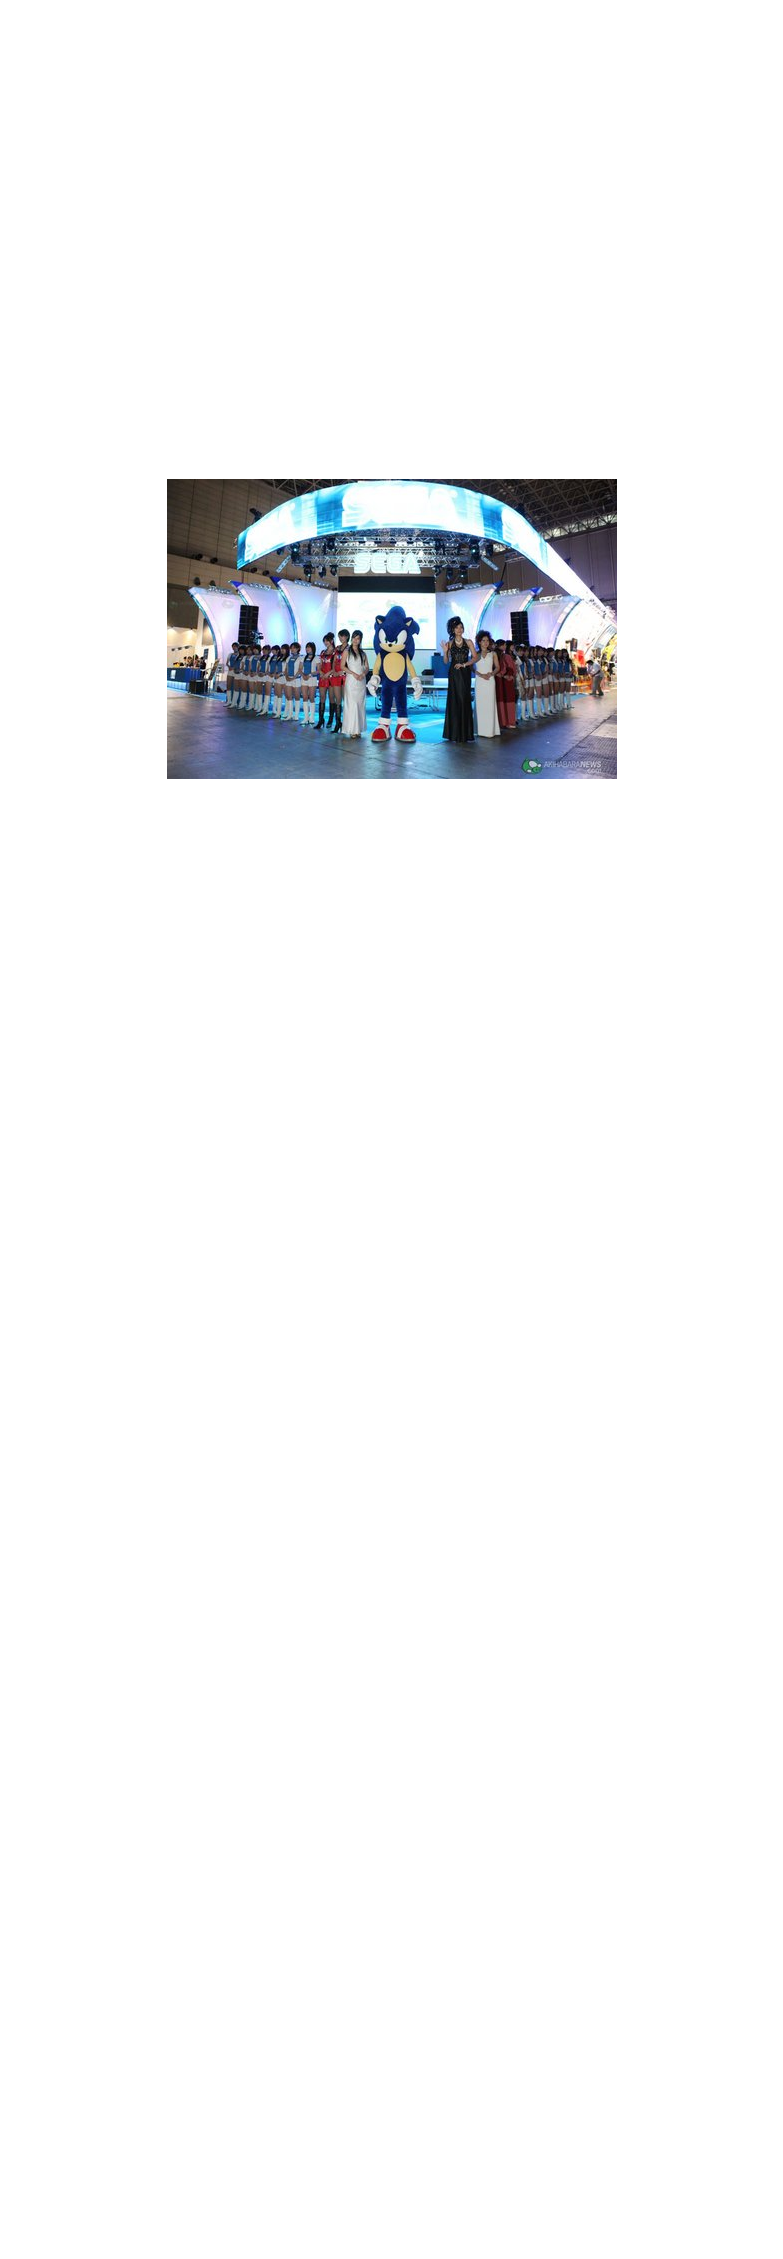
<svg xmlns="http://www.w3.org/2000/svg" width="783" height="2259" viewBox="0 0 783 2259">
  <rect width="100%" height="100%" fill="#fff"/>
  <image x="167" y="479" width="450" height="300" href="img/1.png"/>
</svg>
